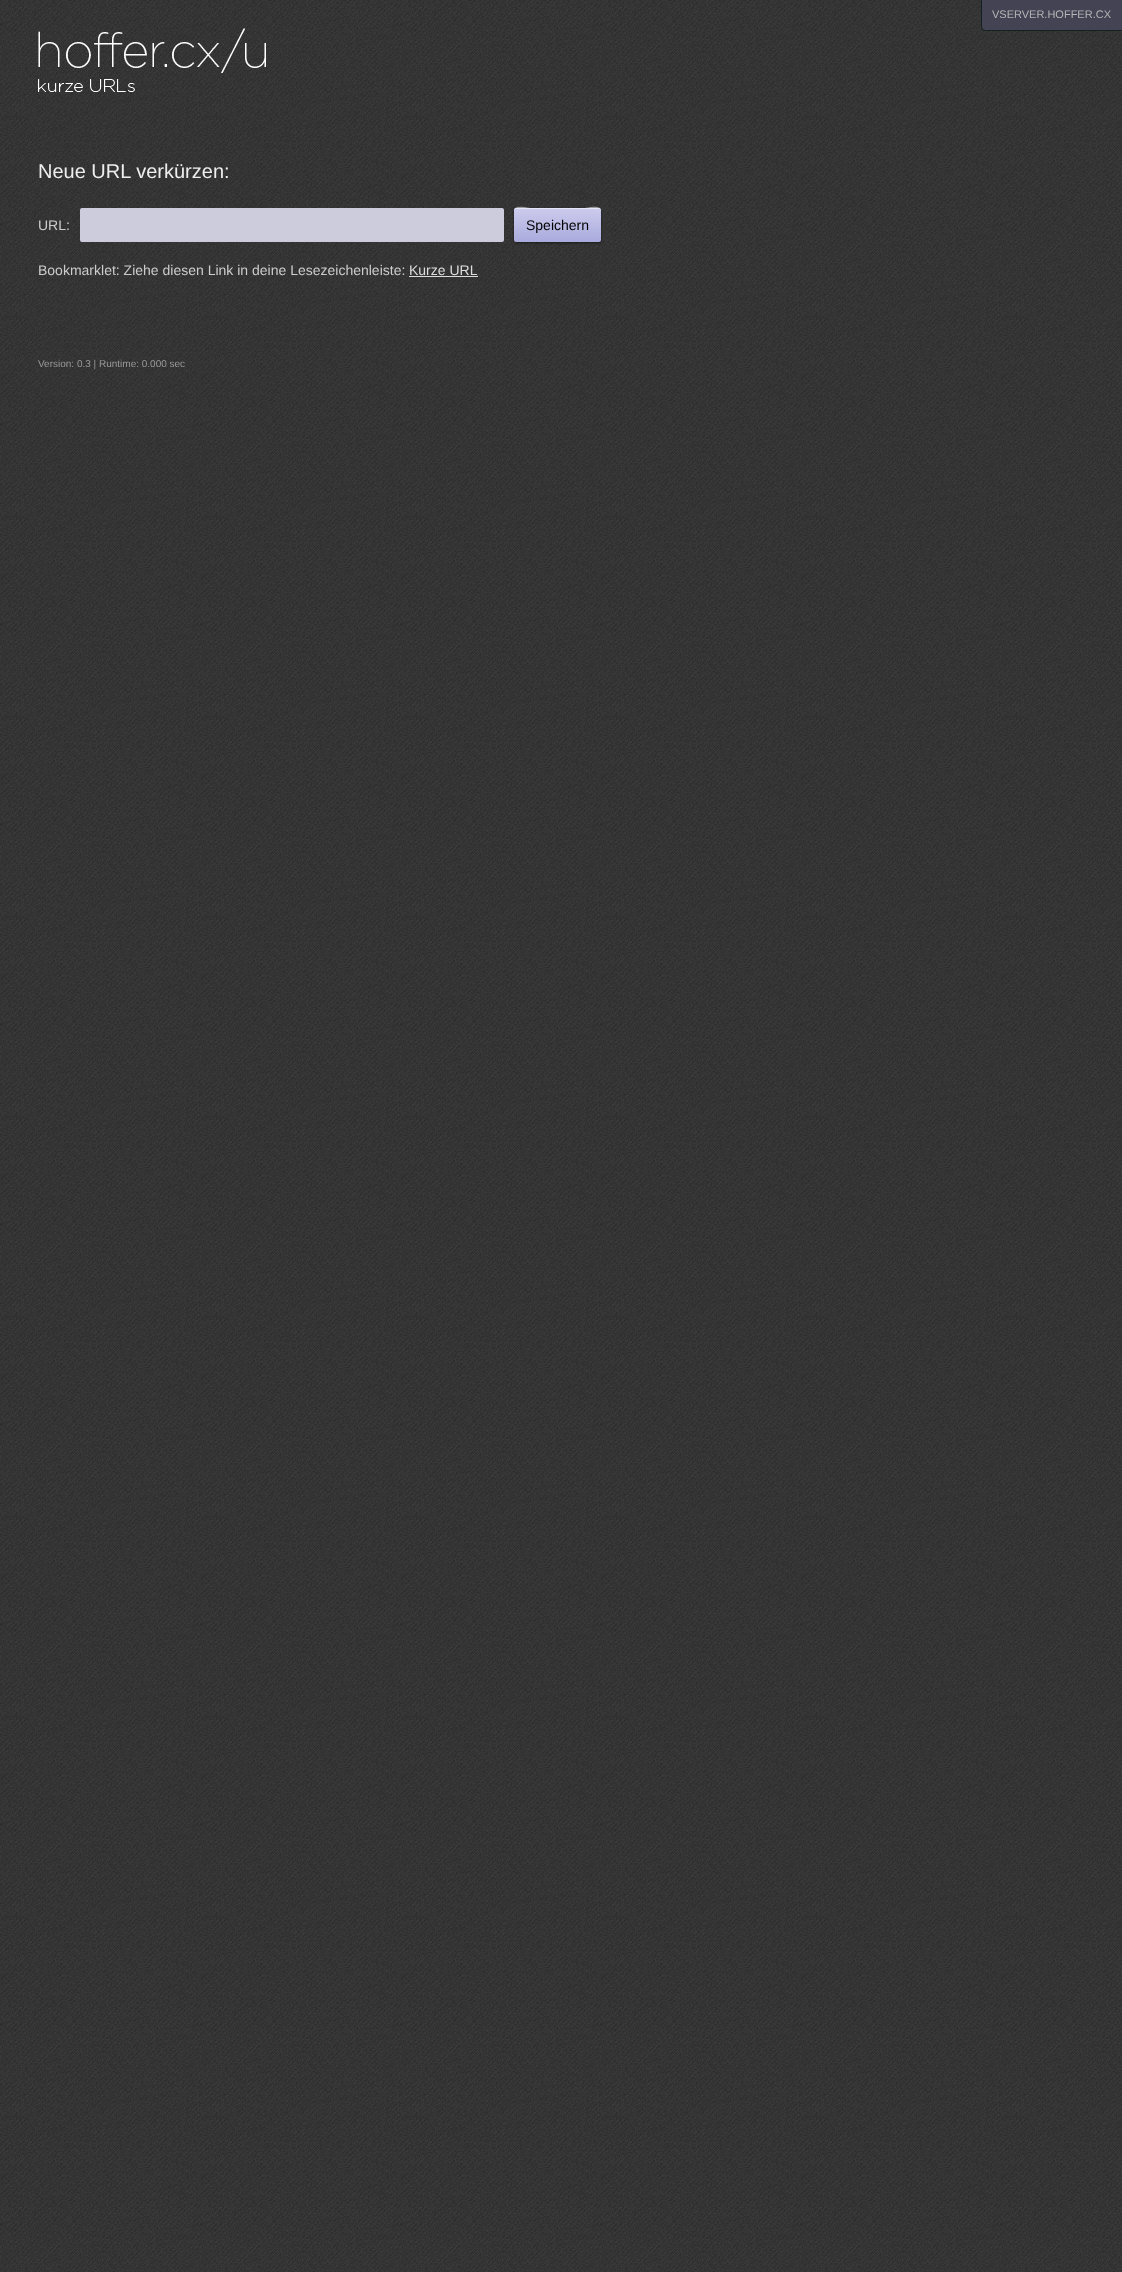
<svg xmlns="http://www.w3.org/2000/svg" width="1122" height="2272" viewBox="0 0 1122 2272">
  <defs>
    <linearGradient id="g1" gradientUnits="userSpaceOnUse" x1="558" y1="208" x2="558" y2="242"><stop offset="0" stop-color="#cce"/><stop offset="1" stop-color="#aad"/></linearGradient>
  </defs>
  <rect width="100%" height="100%" fill="#fff"/>
  <image x="0" y="0" width="1122" height="2272" href="img/1.png"/>
  <path d="M982 0H1122V30H985C983.5 30 982 28.5 982 27Z" fill="#444455f2"/>
  <path d="M981 0H1122V31H985C983 31 981 29 981 27ZM982 0H1122V30H985C983 30 982 29 982 27Z" fill="#112222f2" fill-rule="evenodd"/>
  <image x="38" y="28" width="228" height="64" href="img/2.png"/>
  <rect x="80" y="208" width="424" height="34" rx="2" fill="#ccd"/>
  <rect x="514" y="209" width="87" height="34" rx="2" fill="#00000080" filter="blur(1px)"/>
  <rect x="514" y="208" width="87" height="34" rx="2" fill="url(#g1)"/>
  <path d="M516 209H599C600 209 601 210 601 211C601 204 588 208 585 208H530C527 208 514 204 514 211C514 210 515 209 516 209Z" fill="#ffffff80"/>
  <path d="M409 276h69v1H409z" fill="#ddd"/>
  <text x="992" y="18" font-family="Liberation Sans" font-size="11" fill="#b5b5b6">VSERVER.HOFFER.CX</text>
  <text x="38" y="178" font-family="Liberation Sans" font-size="20" fill="#eee">Neue URL verkürzen:</text>
  <text x="38" y="230" font-family="Liberation Sans" font-size="14" fill="#ccc">URL:</text>
  <text x="526" y="230" font-family="Liberation Sans" font-size="14" fill="#000">Speichern</text>
  <text x="38" y="275" font-family="Liberation Sans" font-size="14" fill="#ccc">Bookmarklet: Ziehe diesen Link in deine Lesezeichenleiste:</text>
  <text x="409" y="275" font-family="Liberation Sans" font-size="14" fill="#ddd">Kurze URL</text>
  <text x="38" y="367" font-family="Liberation Sans" font-size="10" fill="#999">Version: 0.3 | Runtime: 0.000 sec</text>
</svg>
